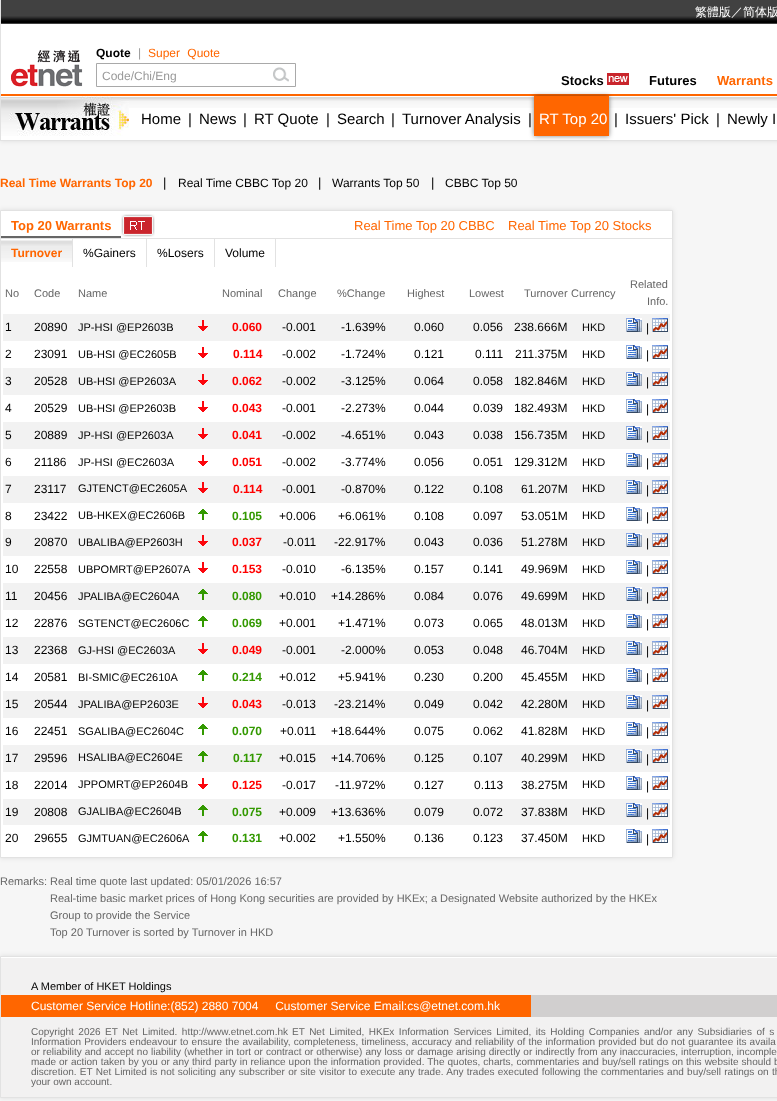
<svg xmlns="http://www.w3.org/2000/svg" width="777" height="1101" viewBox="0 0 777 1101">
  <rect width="100%" height="100%" fill="#f6f6f6"/>
  <path d="M0 0h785v141H0z" fill="#0000001a" filter="blur(2.5px)"/>
  <path d="M1 24h776v116H1z" fill="#fff"/>
  <path d="M0 140h777v1H0z" fill="#e2e2e2"/>
  <path d="M0 0h1v141H0z" fill="#e2e2e2"/>
  <image x="1" y="0" width="776" height="24" href="img/1.png"/>
  <image x="11" y="50" width="72" height="37" href="img/2.png"/>
  <path d="M96.5 63.5h199v23H96.5z" fill="none" stroke="#a9a9a9"/>
  <image x="273" y="67" width="16" height="15" href="img/3.png"/>
  <image x="607" y="73" width="22" height="12" href="img/4.png"/>
  <path d="M1 94h776v2H1z" fill="#f60"/>
  <image x="129" y="97" width="648" height="11" href="img/5.png"/>
  <image x="1" y="96" width="128" height="40" href="img/6.png"/>
  <path d="M534 96h75v40H534z" fill="#00000080" filter="blur(2.5px)"/>
  <path d="M534 96h75v40H534z" fill="#f60"/>
  <path d="M0 210h673v648H0z" fill="#0000001a" filter="blur(2.5px)"/>
  <path d="M0.5 210.5h672v647H0.5z" fill="#fff" stroke="#e2e2e2"/>
  <path d="M1 238h671v1H1z" fill="#e2e2e2"/>
  <path d="M1 236h120v2H1z" fill="#666"/>
  <image x="121" y="214" width="34" height="23" href="img/7.png"/>
  <image x="1" y="240" width="71" height="22" href="img/8.png"/>
  <path d="M72 239h1v28H72z" fill="#e2e2e2"/>
  <path d="M146 239h1v28H146z" fill="#e2e2e2"/>
  <path d="M214 239h1v28H214z" fill="#e2e2e2"/>
  <path d="M275 239h1v28H275z" fill="#e2e2e2"/>
  <path d="M3 314h667v27H3z" fill="#f2f2f2"/>
  <image x="198" y="320" width="10" height="11" href="img/9.png"/>
  <image x="626" y="318" width="16" height="14" href="img/10.png"/>
  <image x="652" y="318" width="16" height="14" href="img/11.png"/>
  <image x="198" y="347" width="10" height="11" href="img/12.png"/>
  <image x="626" y="345" width="16" height="14" href="img/10.png"/>
  <image x="652" y="345" width="16" height="14" href="img/11.png"/>
  <path d="M3 368h667v27H3z" fill="#f2f2f2"/>
  <image x="198" y="374" width="10" height="11" href="img/9.png"/>
  <image x="626" y="372" width="16" height="14" href="img/10.png"/>
  <image x="652" y="372" width="16" height="14" href="img/11.png"/>
  <image x="198" y="401" width="10" height="11" href="img/12.png"/>
  <image x="626" y="399" width="16" height="14" href="img/10.png"/>
  <image x="652" y="399" width="16" height="14" href="img/11.png"/>
  <path d="M3 422h667v27H3z" fill="#f2f2f2"/>
  <image x="198" y="428" width="10" height="11" href="img/9.png"/>
  <image x="626" y="426" width="16" height="14" href="img/10.png"/>
  <image x="652" y="426" width="16" height="14" href="img/11.png"/>
  <image x="198" y="455" width="10" height="11" href="img/12.png"/>
  <image x="626" y="453" width="16" height="14" href="img/10.png"/>
  <image x="652" y="453" width="16" height="14" href="img/11.png"/>
  <path d="M3 476h667v27H3z" fill="#f2f2f2"/>
  <image x="198" y="482" width="10" height="11" href="img/9.png"/>
  <image x="626" y="480" width="16" height="14" href="img/10.png"/>
  <image x="652" y="480" width="16" height="14" href="img/11.png"/>
  <image x="198" y="509" width="10" height="11" href="img/13.png"/>
  <image x="626" y="507" width="16" height="14" href="img/10.png"/>
  <image x="652" y="507" width="16" height="14" href="img/11.png"/>
  <path d="M3 529h667v27H3z" fill="#f2f2f2"/>
  <image x="198" y="535" width="10" height="11" href="img/9.png"/>
  <image x="626" y="533" width="16" height="14" href="img/10.png"/>
  <image x="652" y="533" width="16" height="14" href="img/11.png"/>
  <image x="198" y="562" width="10" height="11" href="img/12.png"/>
  <image x="626" y="560" width="16" height="14" href="img/10.png"/>
  <image x="652" y="560" width="16" height="14" href="img/11.png"/>
  <path d="M3 583h667v27H3z" fill="#f2f2f2"/>
  <image x="198" y="589" width="10" height="11" href="img/14.png"/>
  <image x="626" y="587" width="16" height="14" href="img/10.png"/>
  <image x="652" y="587" width="16" height="14" href="img/11.png"/>
  <image x="198" y="616" width="10" height="11" href="img/13.png"/>
  <image x="626" y="614" width="16" height="14" href="img/10.png"/>
  <image x="652" y="614" width="16" height="14" href="img/11.png"/>
  <path d="M3 637h667v27H3z" fill="#f2f2f2"/>
  <image x="198" y="643" width="10" height="11" href="img/9.png"/>
  <image x="626" y="641" width="16" height="14" href="img/10.png"/>
  <image x="652" y="641" width="16" height="14" href="img/11.png"/>
  <image x="198" y="670" width="10" height="11" href="img/13.png"/>
  <image x="626" y="668" width="16" height="14" href="img/10.png"/>
  <image x="652" y="668" width="16" height="14" href="img/11.png"/>
  <path d="M3 691h667v27H3z" fill="#f2f2f2"/>
  <image x="198" y="697" width="10" height="11" href="img/9.png"/>
  <image x="626" y="695" width="16" height="14" href="img/10.png"/>
  <image x="652" y="695" width="16" height="14" href="img/11.png"/>
  <image x="198" y="724" width="10" height="11" href="img/13.png"/>
  <image x="626" y="722" width="16" height="14" href="img/10.png"/>
  <image x="652" y="722" width="16" height="14" href="img/11.png"/>
  <path d="M3 745h667v27H3z" fill="#f2f2f2"/>
  <image x="198" y="751" width="10" height="11" href="img/14.png"/>
  <image x="626" y="749" width="16" height="14" href="img/10.png"/>
  <image x="652" y="749" width="16" height="14" href="img/11.png"/>
  <image x="198" y="778" width="10" height="11" href="img/12.png"/>
  <image x="626" y="776" width="16" height="14" href="img/10.png"/>
  <image x="652" y="776" width="16" height="14" href="img/11.png"/>
  <path d="M3 799h667v26H3z" fill="#f2f2f2"/>
  <image x="198" y="805" width="10" height="11" href="img/14.png"/>
  <image x="626" y="803" width="16" height="14" href="img/10.png"/>
  <image x="652" y="803" width="16" height="14" href="img/11.png"/>
  <image x="198" y="831" width="10" height="11" href="img/13.png"/>
  <image x="626" y="829" width="16" height="14" href="img/10.png"/>
  <image x="652" y="829" width="16" height="14" href="img/11.png"/>
  <path d="M0 956h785v142H0z" fill="#0000001a" filter="blur(2.5px)"/>
  <path d="M0.5 956.5h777v141H0.5z" fill="none" stroke="#e2e2e2"/>
  <path d="M1 958h776v139H1z" fill="#f2f1f1"/>
  <path d="M1 957h776v1H1z" fill="#fff"/>
  <path d="M1 995h530v22H1z" fill="#f60"/>
  <path d="M531 995h246v22H531z" fill="#d1cfcf"/>
  <text x="695" y="16" font-family="WenQuanYi Zen Hei" font-size="12" font-weight="500" fill="#fff">繁體版／简体版</text>
  <text x="96" y="57" font-family="Liberation Sans" font-size="12" font-weight="bold" fill="#000">Quote</text>
  <text x="138" y="57" font-family="Liberation Sans" font-size="12" fill="#999">|</text>
  <text x="148" y="57" word-spacing="4" font-family="Liberation Sans" font-size="12" fill="#f60">Super Quote</text>
  <text x="102" y="80" font-family="Liberation Sans" font-size="12" fill="#999">Code/Chi/Eng</text>
  <g font-family="Liberation Sans" font-size="13" font-weight="bold" fill="#000">
    <text x="561" y="85">Stocks</text>
    <text x="649" y="85">Futures</text>
  </g>
  <text x="717" y="85" font-family="Liberation Sans" font-size="13" font-weight="bold" fill="#f60">Warrants</text>
  <g font-family="Liberation Sans" font-size="15" fill="#000">
    <text x="141" y="124">Home</text>
    <text x="188" y="124">|</text>
    <text x="199" y="124">News</text>
    <text x="243" y="124">|</text>
    <text x="254" y="124">RT Quote</text>
    <text x="326" y="124">|</text>
    <text x="337" y="124">Search</text>
    <text x="391" y="124">|</text>
    <text x="402" y="124">Turnover Analysis</text>
    <text x="528" y="124">|</text>
  </g>
  <text x="539" y="124" font-family="Liberation Sans" font-size="15" fill="#fff">RT Top 20</text>
  <g font-family="Liberation Sans" font-size="15" fill="#000">
    <text x="614" y="124">|</text>
    <text x="625" y="124">Issuers' Pick</text>
    <text x="716" y="124">|</text>
    <text x="727" y="124">Newly I</text>
  </g>
  <text x="0" y="187" font-family="Liberation Sans" font-size="12" font-weight="bold" fill="#f60">Real Time Warrants Top 20</text>
  <text x="163" y="187" font-family="Liberation Sans" font-size="13" fill="#000">|</text>
  <text x="178" y="187" font-family="Liberation Sans" font-size="12" fill="#000">Real Time CBBC Top 20</text>
  <text x="318" y="187" font-family="Liberation Sans" font-size="13" fill="#000">|</text>
  <text x="332" y="187" font-family="Liberation Sans" font-size="12" fill="#000">Warrants Top 50</text>
  <text x="431" y="187" font-family="Liberation Sans" font-size="13" fill="#000">|</text>
  <text x="445" y="187" font-family="Liberation Sans" font-size="12" fill="#000">CBBC Top 50</text>
  <text x="11" y="230" font-family="Liberation Sans" font-size="13" font-weight="bold" fill="#f60">Top 20 Warrants</text>
  <g font-family="Liberation Sans" font-size="13" fill="#f60">
    <text x="354" y="230">Real Time Top 20 CBBC</text>
    <text x="508" y="230">Real Time Top 20 Stocks</text>
  </g>
  <text x="11" y="257" font-family="Liberation Sans" font-size="12" font-weight="bold" fill="#f60">Turnover</text>
  <g font-family="Liberation Sans" font-size="12" fill="#000">
    <text x="83" y="257">%Gainers</text>
    <text x="157" y="257">%Losers</text>
    <text x="225" y="257">Volume</text>
  </g>
  <g font-family="Liberation Sans" font-size="11" fill="#666">
    <text x="5" y="297">No</text>
    <text x="34" y="297">Code</text>
    <text x="78" y="297">Name</text>
    <text x="222" y="297">Nominal</text>
    <text x="278" y="297">Change</text>
    <text x="337" y="297">%Change</text>
    <text x="407" y="297">Highest</text>
    <text x="469" y="297">Lowest</text>
    <text x="524" y="297">Turnover</text>
    <text x="571" y="297">Currency</text>
    <text x="630" y="288">Related</text>
    <text x="647" y="305">Info.</text>
  </g>
  <g font-family="Liberation Sans" font-size="12" fill="#000">
    <text x="5" y="331">1</text>
    <text x="34" y="331">20890</text>
  </g>
  <text x="78" y="331" font-family="Liberation Sans" font-size="11" fill="#000">JP-HSI @EP2603B</text>
  <text x="232" y="331" font-family="Liberation Sans" font-size="12" font-weight="bold" fill="#f00">0.060</text>
  <g font-family="Liberation Sans" font-size="12" fill="#000">
    <text x="282" y="331">-0.001</text>
    <text x="341" y="331">-1.639%</text>
    <text x="414" y="331">0.060</text>
    <text x="473" y="331">0.056</text>
    <text x="514" y="331">238.666M</text>
  </g>
  <text x="582" y="331" font-family="Liberation Sans" font-size="11" fill="#000">HKD</text>
  <g font-family="Liberation Sans" font-size="12" fill="#000">
    <text x="646" y="332">|</text>
    <text x="5" y="358">2</text>
    <text x="34" y="358">23091</text>
  </g>
  <text x="78" y="358" font-family="Liberation Sans" font-size="11" fill="#000">UB-HSI @EC2605B</text>
  <text x="233" y="358" font-family="Liberation Sans" font-size="12" font-weight="bold" fill="#f00">0.114</text>
  <g font-family="Liberation Sans" font-size="12" fill="#000">
    <text x="282" y="358">-0.002</text>
    <text x="341" y="358">-1.724%</text>
    <text x="414" y="358">0.121</text>
    <text x="475" y="358">0.111</text>
    <text x="515" y="358">211.375M</text>
  </g>
  <text x="582" y="358" font-family="Liberation Sans" font-size="11" fill="#000">HKD</text>
  <g font-family="Liberation Sans" font-size="12" fill="#000">
    <text x="646" y="359">|</text>
    <text x="5" y="385">3</text>
    <text x="34" y="385">20528</text>
  </g>
  <text x="78" y="385" font-family="Liberation Sans" font-size="11" fill="#000">UB-HSI @EP2603A</text>
  <text x="232" y="385" font-family="Liberation Sans" font-size="12" font-weight="bold" fill="#f00">0.062</text>
  <g font-family="Liberation Sans" font-size="12" fill="#000">
    <text x="282" y="385">-0.002</text>
    <text x="341" y="385">-3.125%</text>
    <text x="414" y="385">0.064</text>
    <text x="473" y="385">0.058</text>
    <text x="514" y="385">182.846M</text>
  </g>
  <text x="582" y="385" font-family="Liberation Sans" font-size="11" fill="#000">HKD</text>
  <g font-family="Liberation Sans" font-size="12" fill="#000">
    <text x="646" y="386">|</text>
    <text x="5" y="412">4</text>
    <text x="34" y="412">20529</text>
  </g>
  <text x="78" y="412" font-family="Liberation Sans" font-size="11" fill="#000">UB-HSI @EP2603B</text>
  <text x="232" y="412" font-family="Liberation Sans" font-size="12" font-weight="bold" fill="#f00">0.043</text>
  <g font-family="Liberation Sans" font-size="12" fill="#000">
    <text x="282" y="412">-0.001</text>
    <text x="341" y="412">-2.273%</text>
    <text x="414" y="412">0.044</text>
    <text x="473" y="412">0.039</text>
    <text x="514" y="412">182.493M</text>
  </g>
  <text x="582" y="412" font-family="Liberation Sans" font-size="11" fill="#000">HKD</text>
  <g font-family="Liberation Sans" font-size="12" fill="#000">
    <text x="646" y="413">|</text>
    <text x="5" y="439">5</text>
    <text x="34" y="439">20889</text>
  </g>
  <text x="78" y="439" font-family="Liberation Sans" font-size="11" fill="#000">JP-HSI @EP2603A</text>
  <text x="232" y="439" font-family="Liberation Sans" font-size="12" font-weight="bold" fill="#f00">0.041</text>
  <g font-family="Liberation Sans" font-size="12" fill="#000">
    <text x="282" y="439">-0.002</text>
    <text x="341" y="439">-4.651%</text>
    <text x="414" y="439">0.043</text>
    <text x="473" y="439">0.038</text>
    <text x="514" y="439">156.735M</text>
  </g>
  <text x="582" y="439" font-family="Liberation Sans" font-size="11" fill="#000">HKD</text>
  <g font-family="Liberation Sans" font-size="12" fill="#000">
    <text x="646" y="440">|</text>
    <text x="5" y="466">6</text>
    <text x="34" y="466">21186</text>
  </g>
  <text x="78" y="466" font-family="Liberation Sans" font-size="11" fill="#000">JP-HSI @EC2603A</text>
  <text x="232" y="466" font-family="Liberation Sans" font-size="12" font-weight="bold" fill="#f00">0.051</text>
  <g font-family="Liberation Sans" font-size="12" fill="#000">
    <text x="282" y="466">-0.002</text>
    <text x="341" y="466">-3.774%</text>
    <text x="414" y="466">0.056</text>
    <text x="473" y="466">0.051</text>
    <text x="514" y="466">129.312M</text>
  </g>
  <text x="582" y="466" font-family="Liberation Sans" font-size="11" fill="#000">HKD</text>
  <g font-family="Liberation Sans" font-size="12" fill="#000">
    <text x="646" y="467">|</text>
    <text x="5" y="493">7</text>
    <text x="34" y="493">23117</text>
  </g>
  <text x="78" y="492" font-family="Liberation Sans" font-size="11" fill="#000">GJTENCT@EC2605A</text>
  <text x="233" y="493" font-family="Liberation Sans" font-size="12" font-weight="bold" fill="#f00">0.114</text>
  <g font-family="Liberation Sans" font-size="12" fill="#000">
    <text x="282" y="493">-0.001</text>
    <text x="341" y="493">-0.870%</text>
    <text x="414" y="493">0.122</text>
    <text x="473" y="493">0.108</text>
    <text x="521" y="493">61.207M</text>
  </g>
  <text x="582" y="492" font-family="Liberation Sans" font-size="11" fill="#000">HKD</text>
  <g font-family="Liberation Sans" font-size="12" fill="#000">
    <text x="646" y="494">|</text>
    <text x="5" y="520">8</text>
    <text x="34" y="520">23422</text>
  </g>
  <text x="78" y="519" font-family="Liberation Sans" font-size="11" fill="#000">UB-HKEX@EC2606B</text>
  <text x="232" y="520" font-family="Liberation Sans" font-size="12" font-weight="bold" fill="#390">0.105</text>
  <g font-family="Liberation Sans" font-size="12" fill="#000">
    <text x="279" y="520">+0.006</text>
    <text x="338" y="520">+6.061%</text>
    <text x="414" y="520">0.108</text>
    <text x="473" y="520">0.097</text>
    <text x="521" y="520">53.051M</text>
  </g>
  <text x="582" y="519" font-family="Liberation Sans" font-size="11" fill="#000">HKD</text>
  <g font-family="Liberation Sans" font-size="12" fill="#000">
    <text x="646" y="521">|</text>
    <text x="5" y="546">9</text>
    <text x="34" y="546">20870</text>
  </g>
  <text x="78" y="546" font-family="Liberation Sans" font-size="11" fill="#000">UBALIBA@EP2603H</text>
  <text x="232" y="546" font-family="Liberation Sans" font-size="12" font-weight="bold" fill="#f00">0.037</text>
  <g font-family="Liberation Sans" font-size="12" fill="#000">
    <text x="283" y="546">-0.011</text>
    <text x="334" y="546">-22.917%</text>
    <text x="414" y="546">0.043</text>
    <text x="473" y="546">0.036</text>
    <text x="521" y="546">51.278M</text>
  </g>
  <text x="582" y="546" font-family="Liberation Sans" font-size="11" fill="#000">HKD</text>
  <g font-family="Liberation Sans" font-size="12" fill="#000">
    <text x="646" y="547">|</text>
    <text x="5" y="573">10</text>
    <text x="34" y="573">22558</text>
  </g>
  <text x="78" y="573" font-family="Liberation Sans" font-size="11" fill="#000">UBPOMRT@EP2607A</text>
  <text x="232" y="573" font-family="Liberation Sans" font-size="12" font-weight="bold" fill="#f00">0.153</text>
  <g font-family="Liberation Sans" font-size="12" fill="#000">
    <text x="282" y="573">-0.010</text>
    <text x="341" y="573">-6.135%</text>
    <text x="414" y="573">0.157</text>
    <text x="473" y="573">0.141</text>
    <text x="521" y="573">49.969M</text>
  </g>
  <text x="582" y="573" font-family="Liberation Sans" font-size="11" fill="#000">HKD</text>
  <g font-family="Liberation Sans" font-size="12" fill="#000">
    <text x="646" y="574">|</text>
    <text x="5" y="600">11</text>
    <text x="34" y="600">20456</text>
  </g>
  <text x="78" y="600" font-family="Liberation Sans" font-size="11" fill="#000">JPALIBA@EC2604A</text>
  <text x="232" y="600" font-family="Liberation Sans" font-size="12" font-weight="bold" fill="#390">0.080</text>
  <g font-family="Liberation Sans" font-size="12" fill="#000">
    <text x="279" y="600">+0.010</text>
    <text x="331" y="600">+14.286%</text>
    <text x="414" y="600">0.084</text>
    <text x="473" y="600">0.076</text>
    <text x="521" y="600">49.699M</text>
  </g>
  <text x="582" y="600" font-family="Liberation Sans" font-size="11" fill="#000">HKD</text>
  <g font-family="Liberation Sans" font-size="12" fill="#000">
    <text x="646" y="601">|</text>
    <text x="5" y="627">12</text>
    <text x="34" y="627">22876</text>
  </g>
  <text x="78" y="627" font-family="Liberation Sans" font-size="11" fill="#000">SGTENCT@EC2606C</text>
  <text x="232" y="627" font-family="Liberation Sans" font-size="12" font-weight="bold" fill="#390">0.069</text>
  <g font-family="Liberation Sans" font-size="12" fill="#000">
    <text x="279" y="627">+0.001</text>
    <text x="338" y="627">+1.471%</text>
    <text x="414" y="627">0.073</text>
    <text x="473" y="627">0.065</text>
    <text x="521" y="627">48.013M</text>
  </g>
  <text x="582" y="627" font-family="Liberation Sans" font-size="11" fill="#000">HKD</text>
  <g font-family="Liberation Sans" font-size="12" fill="#000">
    <text x="646" y="628">|</text>
    <text x="5" y="654">13</text>
    <text x="34" y="654">22368</text>
  </g>
  <text x="78" y="654" font-family="Liberation Sans" font-size="11" fill="#000">GJ-HSI @EC2603A</text>
  <text x="232" y="654" font-family="Liberation Sans" font-size="12" font-weight="bold" fill="#f00">0.049</text>
  <g font-family="Liberation Sans" font-size="12" fill="#000">
    <text x="282" y="654">-0.001</text>
    <text x="341" y="654">-2.000%</text>
    <text x="414" y="654">0.053</text>
    <text x="473" y="654">0.048</text>
    <text x="521" y="654">46.704M</text>
  </g>
  <text x="582" y="654" font-family="Liberation Sans" font-size="11" fill="#000">HKD</text>
  <g font-family="Liberation Sans" font-size="12" fill="#000">
    <text x="646" y="655">|</text>
    <text x="5" y="681">14</text>
    <text x="34" y="681">20581</text>
  </g>
  <text x="78" y="681" font-family="Liberation Sans" font-size="11" fill="#000">BI-SMIC@EC2610A</text>
  <text x="232" y="681" font-family="Liberation Sans" font-size="12" font-weight="bold" fill="#390">0.214</text>
  <g font-family="Liberation Sans" font-size="12" fill="#000">
    <text x="279" y="681">+0.012</text>
    <text x="338" y="681">+5.941%</text>
    <text x="414" y="681">0.230</text>
    <text x="473" y="681">0.200</text>
    <text x="521" y="681">45.455M</text>
  </g>
  <text x="582" y="681" font-family="Liberation Sans" font-size="11" fill="#000">HKD</text>
  <g font-family="Liberation Sans" font-size="12" fill="#000">
    <text x="646" y="682">|</text>
    <text x="5" y="708">15</text>
    <text x="34" y="708">20544</text>
  </g>
  <text x="78" y="708" font-family="Liberation Sans" font-size="11" fill="#000">JPALIBA@EP2603E</text>
  <text x="232" y="708" font-family="Liberation Sans" font-size="12" font-weight="bold" fill="#f00">0.043</text>
  <g font-family="Liberation Sans" font-size="12" fill="#000">
    <text x="282" y="708">-0.013</text>
    <text x="334" y="708">-23.214%</text>
    <text x="414" y="708">0.049</text>
    <text x="473" y="708">0.042</text>
    <text x="521" y="708">42.280M</text>
  </g>
  <text x="582" y="708" font-family="Liberation Sans" font-size="11" fill="#000">HKD</text>
  <g font-family="Liberation Sans" font-size="12" fill="#000">
    <text x="646" y="709">|</text>
    <text x="5" y="735">16</text>
    <text x="34" y="735">22451</text>
  </g>
  <text x="78" y="735" font-family="Liberation Sans" font-size="11" fill="#000">SGALIBA@EC2604C</text>
  <text x="232" y="735" font-family="Liberation Sans" font-size="12" font-weight="bold" fill="#390">0.070</text>
  <g font-family="Liberation Sans" font-size="12" fill="#000">
    <text x="280" y="735">+0.011</text>
    <text x="331" y="735">+18.644%</text>
    <text x="414" y="735">0.075</text>
    <text x="473" y="735">0.062</text>
    <text x="521" y="735">41.828M</text>
  </g>
  <text x="582" y="735" font-family="Liberation Sans" font-size="11" fill="#000">HKD</text>
  <g font-family="Liberation Sans" font-size="12" fill="#000">
    <text x="646" y="736">|</text>
    <text x="5" y="762">17</text>
    <text x="34" y="762">29596</text>
  </g>
  <text x="78" y="761" font-family="Liberation Sans" font-size="11" fill="#000">HSALIBA@EC2604E</text>
  <text x="233" y="762" font-family="Liberation Sans" font-size="12" font-weight="bold" fill="#390">0.117</text>
  <g font-family="Liberation Sans" font-size="12" fill="#000">
    <text x="279" y="762">+0.015</text>
    <text x="331" y="762">+14.706%</text>
    <text x="414" y="762">0.125</text>
    <text x="473" y="762">0.107</text>
    <text x="521" y="762">40.299M</text>
  </g>
  <text x="582" y="761" font-family="Liberation Sans" font-size="11" fill="#000">HKD</text>
  <g font-family="Liberation Sans" font-size="12" fill="#000">
    <text x="646" y="763">|</text>
    <text x="5" y="789">18</text>
    <text x="34" y="789">22014</text>
  </g>
  <text x="78" y="788" font-family="Liberation Sans" font-size="11" fill="#000">JPPOMRT@EP2604B</text>
  <text x="232" y="789" font-family="Liberation Sans" font-size="12" font-weight="bold" fill="#f00">0.125</text>
  <g font-family="Liberation Sans" font-size="12" fill="#000">
    <text x="282" y="789">-0.017</text>
    <text x="335" y="789">-11.972%</text>
    <text x="414" y="789">0.127</text>
    <text x="474" y="789">0.113</text>
    <text x="521" y="789">38.275M</text>
  </g>
  <text x="582" y="788" font-family="Liberation Sans" font-size="11" fill="#000">HKD</text>
  <g font-family="Liberation Sans" font-size="12" fill="#000">
    <text x="646" y="790">|</text>
    <text x="5" y="816">19</text>
    <text x="34" y="816">20808</text>
  </g>
  <text x="78" y="815" font-family="Liberation Sans" font-size="11" fill="#000">GJALIBA@EC2604B</text>
  <text x="232" y="816" font-family="Liberation Sans" font-size="12" font-weight="bold" fill="#390">0.075</text>
  <g font-family="Liberation Sans" font-size="12" fill="#000">
    <text x="279" y="816">+0.009</text>
    <text x="331" y="816">+13.636%</text>
    <text x="414" y="816">0.079</text>
    <text x="473" y="816">0.072</text>
    <text x="521" y="816">37.838M</text>
  </g>
  <text x="582" y="815" font-family="Liberation Sans" font-size="11" fill="#000">HKD</text>
  <g font-family="Liberation Sans" font-size="12" fill="#000">
    <text x="646" y="817">|</text>
    <text x="5" y="842">20</text>
    <text x="34" y="842">29655</text>
  </g>
  <text x="78" y="842" font-family="Liberation Sans" font-size="11" fill="#000">GJMTUAN@EC2606A</text>
  <text x="232" y="842" font-family="Liberation Sans" font-size="12" font-weight="bold" fill="#390">0.131</text>
  <g font-family="Liberation Sans" font-size="12" fill="#000">
    <text x="279" y="842">+0.002</text>
    <text x="338" y="842">+1.550%</text>
    <text x="414" y="842">0.136</text>
    <text x="473" y="842">0.123</text>
    <text x="521" y="842">37.450M</text>
  </g>
  <text x="582" y="842" font-family="Liberation Sans" font-size="11" fill="#000">HKD</text>
  <text x="646" y="843" font-family="Liberation Sans" font-size="12" fill="#000">|</text>
  <g font-family="Liberation Sans" font-size="11" fill="#666">
    <text x="0" y="885">Remarks: Real time quote last updated: 05/01/2026 16:57</text>
    <text x="50" y="902">Real-time basic market prices of Hong Kong securities are provided by HKEx; a Designated Website authorized by the HKEx</text>
    <text x="50" y="919">Group to provide the Service</text>
    <text x="50" y="936">Top 20 Turnover is sorted by Turnover in HKD</text>
  </g>
  <text x="31" y="990" font-family="Liberation Sans" font-size="11" fill="#000">A Member of HKET Holdings</text>
  <text x="31" y="1010" font-family="Liberation Sans" font-size="12" fill="#fff" xml:space="preserve">Customer Service Hotline:(852) 2880 7004     Customer Service Email:cs@etnet.com.hk</text>
  <g font-family="Liberation Sans" font-size="10" fill="#666">
    <text x="31" y="1035" word-spacing="1.75">Copyright 2026 ET Net Limited. http://www.etnet.com.hk</text>
    <text x="292" y="1035" word-spacing="1.75">ET Net Limited, HKEx Information Services Limited, its Holding Companies and/or any Subsidiaries of s</text>
    <text x="31" y="1045" word-spacing="0.4">Information Providers endeavour to ensure the availability, completeness, timeliness, accuracy and reliability of the information provided but do not guarantee its availa</text>
    <text x="31" y="1055" word-spacing="0.2">or reliability and accept no liability (whether in tort or contract or otherwise) any loss or damage arising directly or indirectly from any inaccuracies, interruption, incomple</text>
    <text x="31" y="1065" word-spacing="0.25">made or action taken by you or any third party in reliance upon the information provided. The quotes, charts, commentaries and buy/sell ratings on this website should b</text>
    <text x="31" y="1075" word-spacing="0.5">discretion. ET Net Limited is not soliciting any subscriber or site visitor to execute any trade. Any trades executed following the commentaries and buy/sell ratings on th</text>
    <text x="31" y="1085">your own account.</text>
  </g>
</svg>
